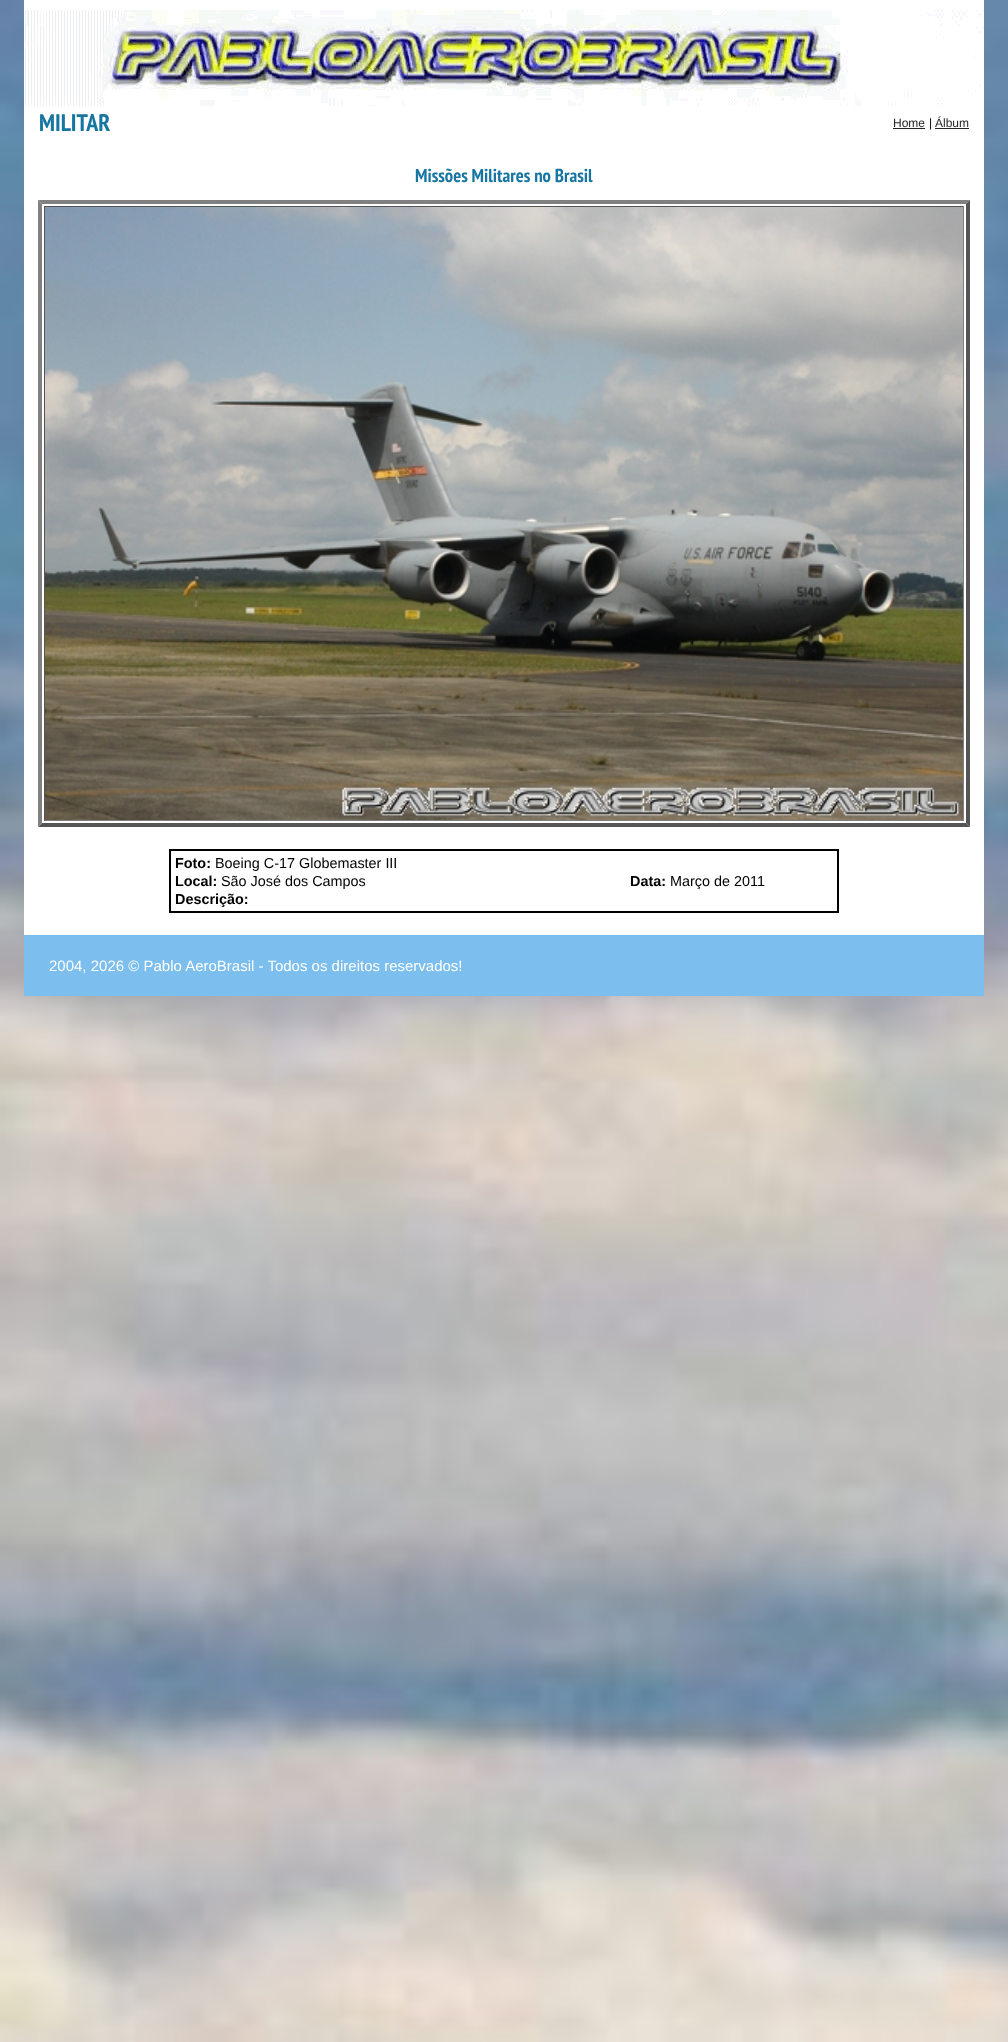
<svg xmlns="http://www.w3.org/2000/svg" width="1008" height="2042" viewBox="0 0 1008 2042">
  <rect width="100%" height="100%" fill="#fff"/>
  <image x="0" y="0" width="1008" height="2042" href="img/1.png"/>
  <path d="M24 0h960v935H24z" fill="#fff"/>
  <image x="25" y="10" width="959" height="96" href="img/2.png"/>
  <path d="M893 128h32v1H893z" fill="#272624"/>
  <path d="M935 128h34v1H935z" fill="#272624"/>
  <path d="M38 200H970L966 204H42Z" fill="#808080"/>
  <path d="M970 200V827L966 823V204Z" fill="#555"/>
  <path d="M970 827H38L42 823H966Z" fill="#555"/>
  <path d="M38 827V200L42 204V823Z" fill="#808080"/>
  <path d="M44 206h920v1H44z" fill="#555"/>
  <path d="M963 206h1v615H963z" fill="#808080"/>
  <path d="M44 820h920v1H44z" fill="#808080"/>
  <path d="M44 206h1v615H44z" fill="#555"/>
  <image x="45" y="207" width="918" height="613" href="img/3.png"/>
  <path d="M170 850h668v62H170z" fill="none" stroke="#000" stroke-width="2"/>
  <path d="M24 935h960v61H24z" fill="#7cbeed"/>
  <text x="39" y="131" font-family="PT Sans Narrow" font-size="24" font-weight="bold" fill="#1675a1">MILITAR</text>
  <text x="893" y="127" font-family="Liberation Sans" font-size="12" fill="#272624">Home</text>
  <text x="929" y="127" font-family="Liberation Sans" font-size="12" fill="#000">|</text>
  <text x="935" y="127" font-family="Liberation Sans" font-size="12" fill="#272624">Álbum</text>
  <text x="415" y="182" font-family="PT Sans Narrow" font-size="18.75" font-weight="bold" fill="#1675a1">Missões Militares no Brasil</text>
  <text x="175" y="868" font-family="Liberation Sans" font-size="14.4" font-weight="bold" fill="#000">Foto:</text>
  <text x="215" y="868" font-family="Liberation Sans" font-size="14.4" fill="#000">Boeing C-17 Globemaster III</text>
  <text x="175" y="886" font-family="Liberation Sans" font-size="14.4" font-weight="bold" fill="#000">Local:</text>
  <text x="221" y="886" font-family="Liberation Sans" font-size="14.4" fill="#000">São José dos Campos</text>
  <text x="630" y="886" font-family="Liberation Sans" font-size="14.4" font-weight="bold" fill="#000">Data:</text>
  <text x="670" y="886" font-family="Liberation Sans" font-size="14.4" fill="#000">Março de 2011</text>
  <text x="175" y="904" font-family="Liberation Sans" font-size="14.4" font-weight="bold" fill="#000">Descrição:</text>
  <text x="49" y="971" font-family="Liberation Sans" font-size="15" fill="#fff">2004, 2026 © Pablo AeroBrasil - Todos os direitos reservados!</text>
</svg>
